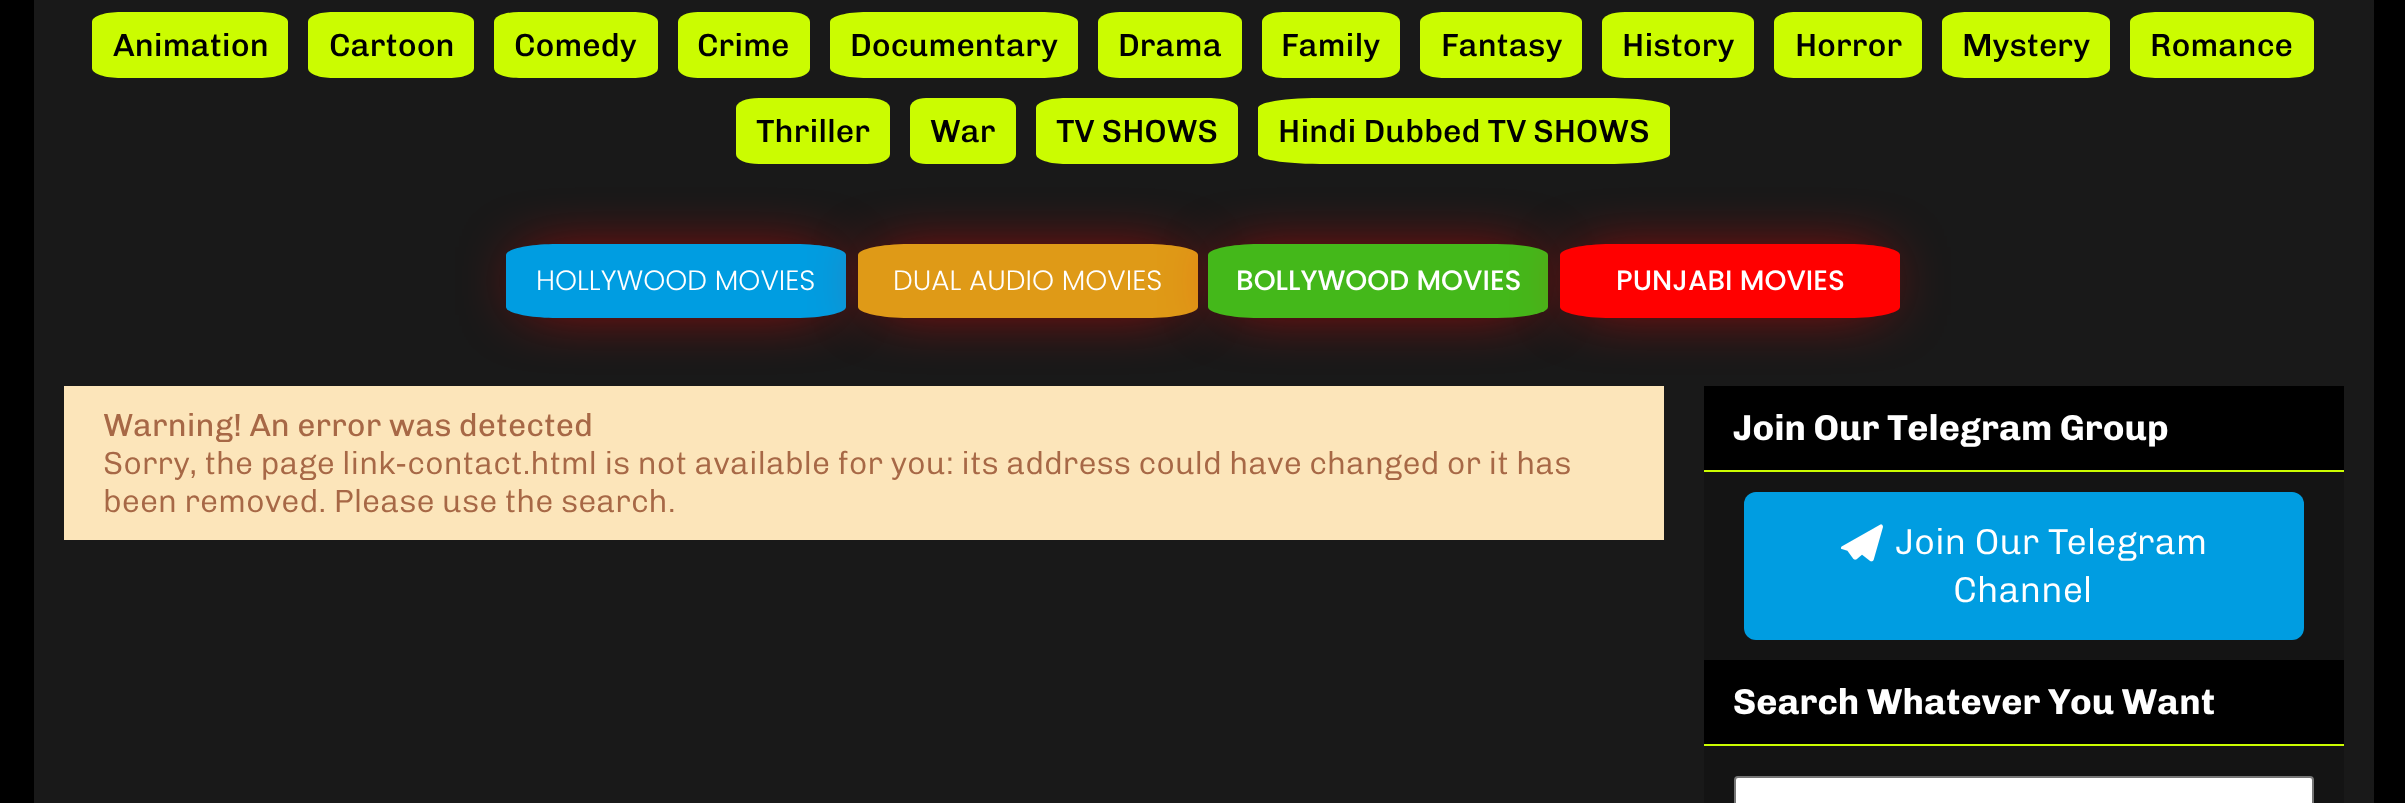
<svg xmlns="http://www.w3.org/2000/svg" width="2405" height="803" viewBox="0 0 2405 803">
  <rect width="100%" height="100%" fill="#000"/>
  <path d="M34 0h2340v803H34z" fill="#191919"/>
  <path d="M121 12H259C275 12 288 16 288 22V68C288 74 275 78 259 78H121C105 78 92 74 92 68V22C92 16 105 12 121 12Z" fill="#cbfc01"/>
  <path d="M333 12H449C463 12 474 16 474 22V68C474 74 463 78 449 78H333C319 78 308 74 308 68V22C308 16 319 12 333 12Z" fill="#cbfc01"/>
  <path d="M519 12H633C647 12 658 16 658 22V68C658 74 647 78 633 78H519C505 78 494 74 494 68V22C494 16 505 12 519 12Z" fill="#cbfc01"/>
  <path d="M698 12H790C801 12 810 16 810 22V68C810 74 801 78 790 78H698C687 78 678 74 678 68V22C678 16 687 12 698 12Z" fill="#cbfc01"/>
  <path d="M867 12H1041C1061 12 1078 16 1078 22V68C1078 74 1061 78 1041 78H867C847 78 830 74 830 68V22C830 16 847 12 867 12Z" fill="#cbfc01"/>
  <path d="M1120 12H1220C1232 12 1242 16 1242 22V68C1242 74 1232 78 1220 78H1120C1108 78 1098 74 1098 68V22C1098 16 1108 12 1120 12Z" fill="#cbfc01"/>
  <path d="M1283 12H1379C1391 12 1400 16 1400 22V68C1400 74 1391 78 1379 78H1283C1271 78 1262 74 1262 68V22C1262 16 1271 12 1283 12Z" fill="#cbfc01"/>
  <path d="M1444 12H1558C1571 12 1582 16 1582 22V68C1582 74 1571 78 1558 78H1444C1431 78 1420 74 1420 68V22C1420 16 1431 12 1444 12Z" fill="#cbfc01"/>
  <path d="M1625 12H1731C1744 12 1754 16 1754 22V68C1754 74 1744 78 1731 78H1625C1612 78 1602 74 1602 68V22C1602 16 1612 12 1625 12Z" fill="#cbfc01"/>
  <path d="M1796 12H1900C1912 12 1922 16 1922 22V68C1922 74 1912 78 1900 78H1796C1784 78 1774 74 1774 68V22C1774 16 1784 12 1796 12Z" fill="#cbfc01"/>
  <path d="M1967 12H2085C2099 12 2110 16 2110 22V68C2110 74 2099 78 2085 78H1967C1953 78 1942 74 1942 68V22C1942 16 1953 12 1967 12Z" fill="#cbfc01"/>
  <path d="M2158 12H2286C2302 12 2314 16 2314 22V68C2314 74 2302 78 2286 78H2158C2142 78 2130 74 2130 68V22C2130 16 2142 12 2158 12Z" fill="#cbfc01"/>
  <path d="M759 98H867C880 98 890 102 890 108V154C890 160 880 164 867 164H759C746 164 736 160 736 154V108C736 102 746 98 759 98Z" fill="#cbfc01"/>
  <path d="M926 98H1000C1009 98 1016 102 1016 108V154C1016 160 1009 164 1000 164H926C917 164 910 160 910 154V108C910 102 917 98 926 98Z" fill="#cbfc01"/>
  <path d="M1066 98H1208C1224 98 1238 102 1238 108V154C1238 160 1224 164 1208 164H1066C1050 164 1036 160 1036 154V108C1036 102 1050 98 1066 98Z" fill="#cbfc01"/>
  <path d="M1320 98H1608C1642 98 1670 102 1670 108V154C1670 160 1642 164 1608 164H1320C1286 164 1258 160 1258 154V108C1258 102 1286 98 1320 98Z" fill="#cbfc01"/>
  <path d="M526 264h300v34H526z" fill="#fe0000" filter="blur(32px)"/>
  <path d="M557 244H795C823 244 846 249 846 255V307C846 313 823 318 795 318H557C529 318 506 313 506 307V255C506 249 529 244 557 244Z" fill="#009de1"/>
  <path d="M878 264h300v34H878z" fill="#fe0000" filter="blur(32px)"/>
  <path d="M909 244H1147C1175 244 1198 249 1198 255V307C1198 313 1175 318 1147 318H909C881 318 858 313 858 307V255C858 249 881 244 909 244Z" fill="#df9a17"/>
  <path d="M1228 264h300v34H1228z" fill="#fe0000" filter="blur(32px)"/>
  <path d="M1259 244H1497C1525 244 1548 249 1548 255V307C1548 313 1525 318 1497 318H1259C1231 318 1208 313 1208 307V255C1208 249 1231 244 1259 244Z" fill="#44b81a"/>
  <path d="M1580 264h300v34H1580z" fill="#fe0000" filter="blur(32px)"/>
  <path d="M1611 244H1849C1877 244 1900 249 1900 255V307C1900 313 1877 318 1849 318H1611C1583 318 1560 313 1560 307V255C1560 249 1583 244 1611 244Z" fill="#f00"/>
  <path d="M64 386h1600v154H64z" fill="#fce5ba"/>
  <path d="M1704 386h640v358H1704z" fill="#000"/>
  <path d="M1704 470h640v2H1704z" fill="#cbfc01"/>
  <path d="M1704 472h640v188H1704z" fill="#141414"/>
  <rect x="1744" y="492" width="560" height="148" rx="12" fill="#009de1"/>
  <image x="1841" y="524" width="42" height="38" href="img/1.png"/>
  <path d="M1704 744h640v2H1704z" fill="#cbfc01"/>
  <path d="M1704 746h640v57H1704z" fill="#141414"/>
  <rect x="1735" y="777" width="578" height="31" rx="3" fill="#fff" stroke="#767676" stroke-width="2"/>
  <g font-family="Chivo" font-size="32" font-weight="500" fill="#000">
    <text x="113" y="56">Animation</text>
    <text x="329" y="56">Cartoon</text>
    <text x="514" y="56">Comedy</text>
    <text x="697" y="56">Crime</text>
    <text x="850" y="56">Documentary</text>
    <text x="1118" y="56">Drama</text>
    <text x="1281" y="56">Family</text>
    <text x="1441" y="56">Fantasy</text>
    <text x="1622" y="56">History</text>
    <text x="1795" y="56">Horror</text>
    <text x="1962" y="56">Mystery</text>
    <text x="2150" y="56">Romance</text>
    <text x="756" y="142">Thriller</text>
    <text x="930" y="142">War</text>
    <text x="1056" y="142">TV SHOWS</text>
    <text x="1278" y="142">Hindi Dubbed TV SHOWS</text>
  </g>
  <g font-family="Poppins" font-size="28" font-weight="300" fill="#fff">
    <text x="536" y="290">HOLLYWOOD MOVIES</text>
    <text x="893" y="290">DUAL AUDIO MOVIES</text>
  </g>
  <g font-family="Poppins" font-size="28" font-weight="500" fill="#fff">
    <text x="1236" y="290">BOLLYWOOD MOVIES</text>
    <text x="1616" y="290">PUNJABI MOVIES</text>
  </g>
  <text x="103" y="436" font-family="Chivo" font-size="32" fill="#a76846">Warning! An error was detected</text>
  <g font-family="Chivo" font-size="32" font-weight="300" fill="#a76846">
    <text x="103" y="474">Sorry, the page link-contact.html is not available for you: its address could have changed or it has</text>
    <text x="103" y="512">been removed. Please use the search.</text>
  </g>
  <text x="1733" y="440" font-family="Chivo" font-size="36" font-weight="bold" fill="#fff">Join Our Telegram Group</text>
  <g font-family="Chivo" font-size="36" font-weight="300" fill="#fff">
    <text x="1895" y="554">Join Our Telegram</text>
    <text x="1953" y="602">Channel</text>
  </g>
  <text x="1733" y="714" font-family="Chivo" font-size="36" font-weight="bold" fill="#fff">Search Whatever You Want</text>
</svg>
